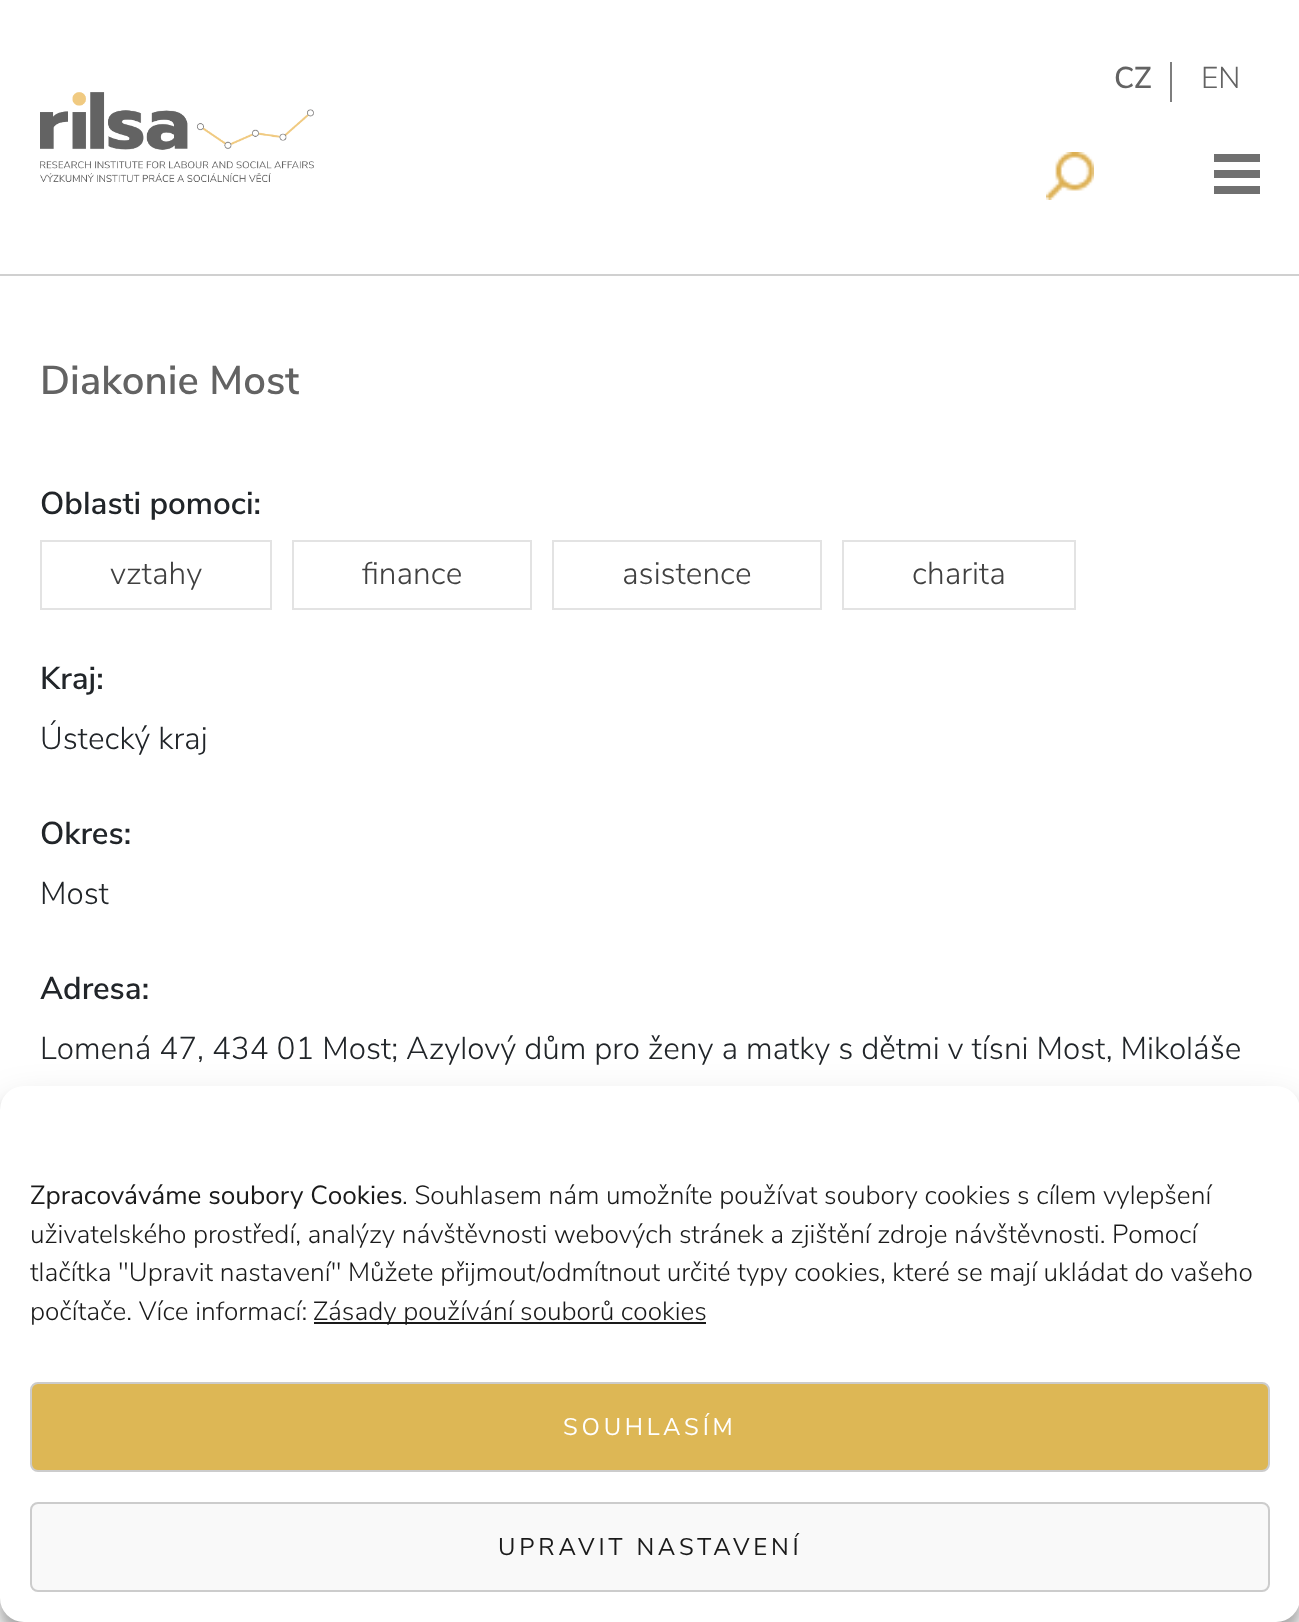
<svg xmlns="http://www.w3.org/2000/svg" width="1299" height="1622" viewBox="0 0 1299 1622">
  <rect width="100%" height="100%" fill="#fff"/>
  <path d="M0 274h1299v2H0z" fill="#d0d0d0"/>
  <path d="M1170 62h2v40H1170z" fill="#7e7e7e"/>
  <image x="1046" y="152" width="48" height="48" href="img/1.png"/>
  <path d="M1214 154h46v8H1214z" fill="#707070"/>
  <path d="M1214 170h46v8H1214z" fill="#707070"/>
  <path d="M1214 186h46v8H1214z" fill="#707070"/>
  <image x="40" y="92" width="274" height="90" href="img/2.png"/>
  <path d="M41 541h230v68H41z" fill="none" stroke="#e3e3e3" stroke-width="2"/>
  <path d="M293 541h238v68H293z" fill="none" stroke="#e3e3e3" stroke-width="2"/>
  <path d="M553 541h268v68H553z" fill="none" stroke="#e3e3e3" stroke-width="2"/>
  <path d="M843 541h232v68H843z" fill="none" stroke="#e3e3e3" stroke-width="2"/>
  <rect y="1098" width="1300" height="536" rx="24" fill="#0000003b" filter="blur(6px)"/>
  <rect y="1106" width="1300" height="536" rx="24" fill="#00000030" filter="blur(20px)"/>
  <rect y="1086" width="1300" height="536" rx="24" fill="#fff"/>
  <path d="M314 1322h392v2H314z" fill="#1a1a1a"/>
  <rect x="31" y="1383" width="1238" height="88" rx="7" fill="#ddb755" stroke="#ccc" stroke-width="2"/>
  <rect x="31" y="1503" width="1238" height="88" rx="7" fill="#f9f9f9" stroke="#ccc" stroke-width="2"/>
  <text x="1114" y="88" font-family="Nunito Sans" font-size="30" font-weight="600" fill="#636363">CZ</text>
  <text x="1201" y="88" font-family="Nunito Sans" font-size="30" font-weight="300" fill="#636363">EN</text>
  <text x="40" y="394" font-family="Nunito Sans" font-size="40.25" font-weight="600" fill="#636363">Diakonie Most</text>
  <text x="40" y="514" font-family="Nunito Sans" font-size="31.5" font-weight="600" fill="#212529">Oblasti pomoci:</text>
  <g font-family="Nunito Sans" font-size="31.5" font-weight="300" fill="#404040">
    <text x="110" y="584">vztahy</text>
    <text x="362" y="584">finance</text>
    <text x="622" y="584">asistence</text>
    <text x="912" y="584">charita</text>
  </g>
  <text x="40" y="689" font-family="Nunito Sans" font-size="31.5" font-weight="600" fill="#212529">Kraj:</text>
  <text x="40" y="749" font-family="Nunito Sans" font-size="31.5" font-weight="300" fill="#212529">Ústecký kraj</text>
  <text x="40" y="844" font-family="Nunito Sans" font-size="31.5" font-weight="600" fill="#212529">Okres:</text>
  <text x="40" y="904" font-family="Nunito Sans" font-size="31.5" font-weight="300" fill="#212529">Most</text>
  <text x="40" y="999" font-family="Nunito Sans" font-size="31.5" font-weight="600" fill="#212529">Adresa:</text>
  <text x="40" y="1059" font-family="Nunito Sans" font-size="31.5" font-weight="300" fill="#212529">Lomená 47, 434 01 Most; Azylový dům pro ženy a matky s dětmi v tísni Most, Mikoláše</text>
  <text x="30" y="1204" font-family="Nunito Sans" font-size="26.25" fill="#1a1a1a">Zpracováváme soubory Cookies</text>
  <g font-family="Nunito Sans" font-size="26.25" font-weight="300" fill="#1a1a1a">
    <text x="402" y="1204">. Souhlasem nám umožníte používat soubory cookies s cílem vylepšení</text>
    <text x="30" y="1243" word-spacing="-0.1">uživatelského prostředí, analýzy návštěvnosti webových stránek a zjištění zdroje návštěvnosti. Pomocí</text>
    <text x="30" y="1281">tlačítka "Upravit nastavení" Můžete přijmout/odmítnout určité typy cookies, které se mají ukládat do vašeho</text>
    <text x="30" y="1320">počítače. Více informací:</text>
    <text x="313" y="1320">Zásady používání souborů cookies</text>
  </g>
  <text x="563" y="1435" font-family="Nunito Sans" font-size="24" letter-spacing="3.75" fill="#fff">SOUHLASÍM</text>
  <text x="498" y="1555" font-family="Nunito Sans" font-size="24" letter-spacing="3.75" fill="#1a1a1a">UPRAVIT NASTAVENÍ</text>
</svg>
